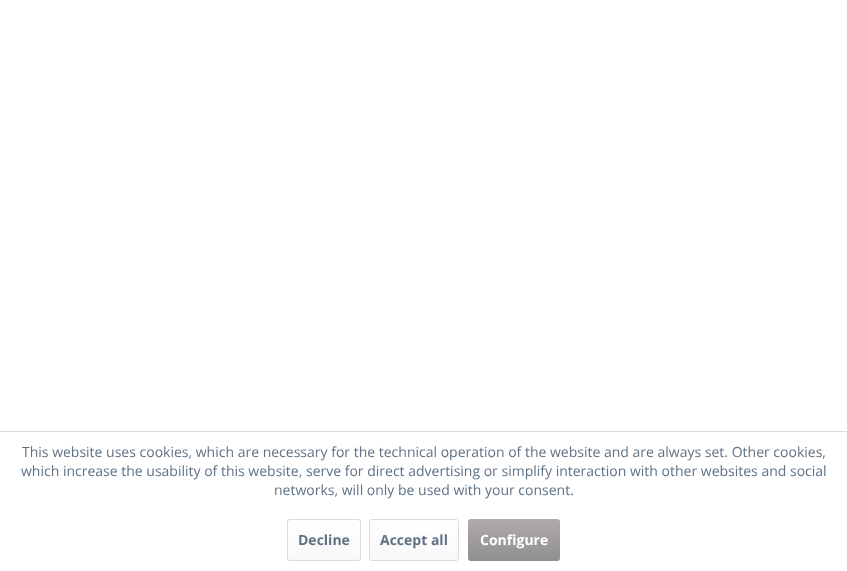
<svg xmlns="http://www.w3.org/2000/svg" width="847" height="571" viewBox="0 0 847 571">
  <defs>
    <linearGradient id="g1" gradientUnits="userSpaceOnUse" x1="324" y1="520" x2="324" y2="560"><stop offset="0" stop-color="#fff"/><stop offset="1" stop-color="#f8f8fa"/></linearGradient>
    <linearGradient id="g2" gradientUnits="userSpaceOnUse" x1="414" y1="520" x2="414" y2="560"><stop offset="0" stop-color="#fff"/><stop offset="1" stop-color="#f8f8fa"/></linearGradient>
    <linearGradient id="g3" gradientUnits="userSpaceOnUse" x1="514" y1="519" x2="514" y2="561"><stop offset="0" stop-color="#b2aaaa"/><stop offset="1" stop-color="#8f8f8f"/></linearGradient>
  </defs>
  <rect width="100%" height="100%" fill="#fff"/>
  <path d="M0 431h847v1H0z" fill="#dadae5"/>
  <rect x="288" y="520" width="72" height="40" rx="2" fill="url(#g1)"/>
  <rect x="287.5" y="519.5" width="73" height="41" rx="2.5" fill="none" stroke="#dadae5"/>
  <rect x="370" y="520" width="88" height="40" rx="2" fill="url(#g2)"/>
  <rect x="369.5" y="519.5" width="89" height="41" rx="2.5" fill="none" stroke="#dadae5"/>
  <rect x="468" y="519" width="92" height="42" rx="3" fill="url(#g3)"/>
  <g font-family="Open Sans" font-size="14" fill="#5f7285">
    <text x="22" y="457">This website uses cookies, which are necessary for the technical operation of the website and are always set. Other cookies,</text>
    <text x="21" y="476">which increase the usability of this website, serve for direct advertising or simplify interaction with other websites and social</text>
    <text x="274" y="495">networks, will only be used with your consent.</text>
  </g>
  <g font-family="Open Sans" font-size="14" font-weight="bold" fill="#5f7285">
    <text x="298" y="545">Decline</text>
    <text x="380" y="545">Accept all</text>
  </g>
  <text x="480" y="545" font-family="Open Sans" font-size="14" font-weight="bold" fill="#fff">Configure</text>
</svg>
